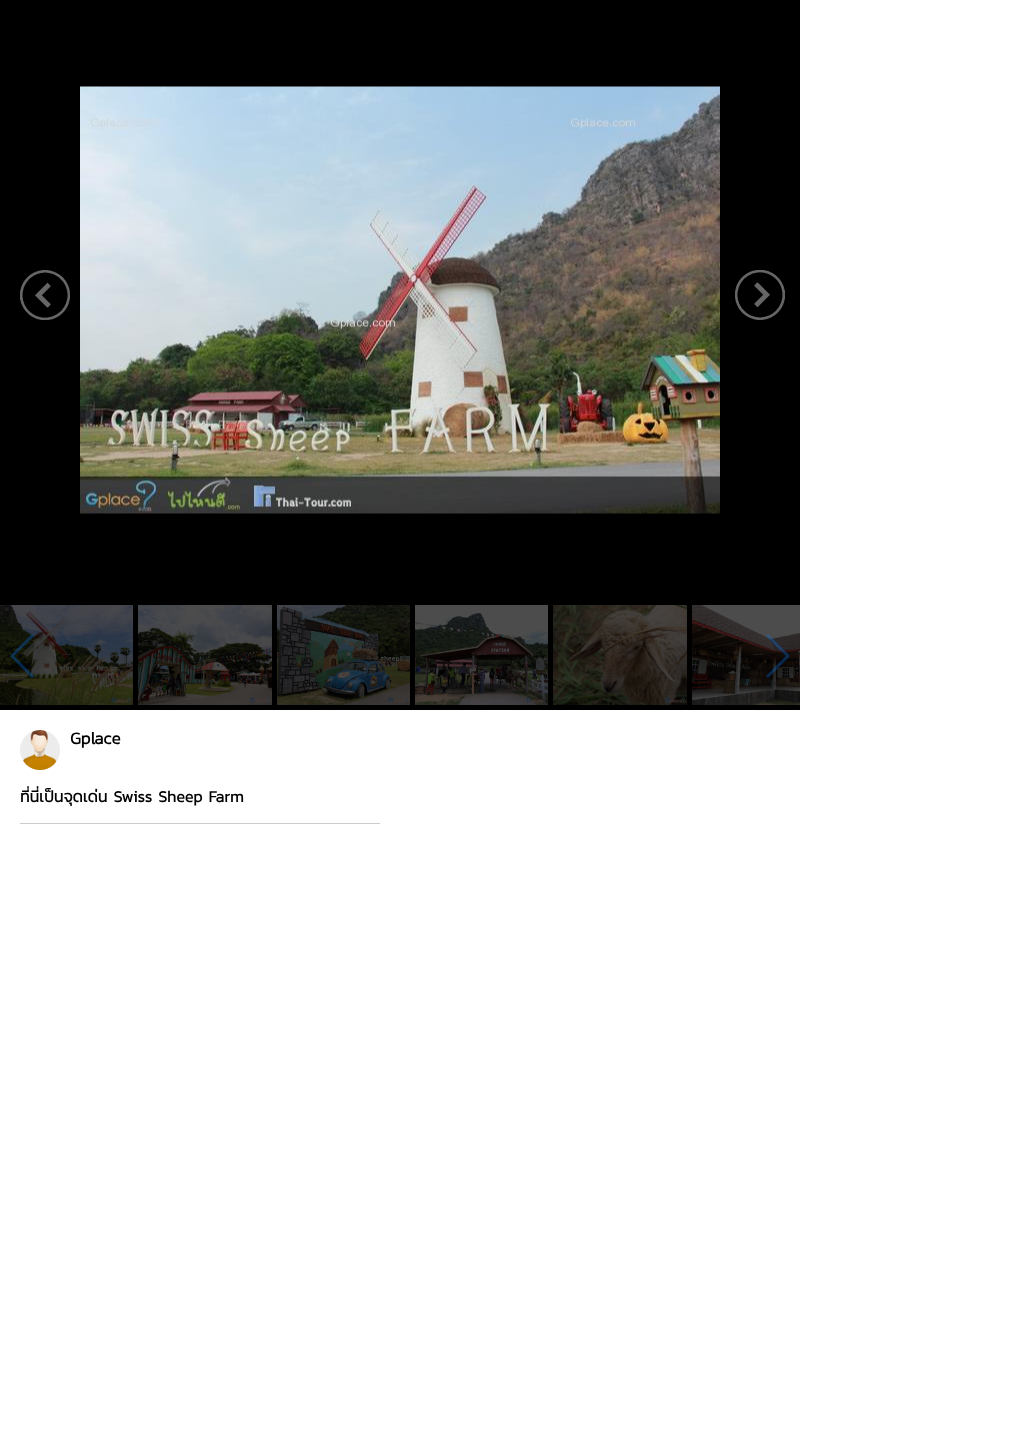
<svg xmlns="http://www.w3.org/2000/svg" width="1029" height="1450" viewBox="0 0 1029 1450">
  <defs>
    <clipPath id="clip1"><path d="M20 785h224v22H20z"/></clipPath>
  </defs>
  <rect width="100%" height="100%" fill="#fff"/>
  <path d="M0 0h800v710H0z" fill="#000"/>
  <image x="20" y="270" width="50" height="50" href="img/1.png"/>
  <image x="80" y="86" width="640" height="428" href="img/2.png"/>
  <image x="735" y="270" width="50" height="50" href="img/3.png"/>
  <image x="0" y="605" width="133" height="100" href="img/4.png"/>
  <image x="138" y="605" width="134" height="100" href="img/5.png"/>
  <image x="277" y="605" width="133" height="100" href="img/6.png"/>
  <image x="415" y="605" width="133" height="100" href="img/7.png"/>
  <image x="553" y="605" width="134" height="100" href="img/8.png"/>
  <image x="692" y="605" width="108" height="100" href="img/9.png"/>
  <path d="M10 656L32 634L34 636L14 656L34 676L32 678Z" fill="#007aff4d"/>
  <path d="M790 656L768 678L766 676L786 656L766 636L768 634Z" fill="#007aff4d"/>
  <image x="20" y="730" width="40" height="40" href="img/10.png"/>
  <path d="M20 823h360v1H20z" fill="#ccc"/>
  <text x="70" y="744" font-family="Kanit" font-size="17" font-weight="bold" fill="#000">Gplace</text>
  <g clip-path="url(#clip1)">
    <text x="20" y="802" font-family="Kanit" font-size="16" font-weight="bold" fill="#000">ที่นี่เป็นจุดเด่น Swiss Sheep Farm</text>
  </g>
</svg>
